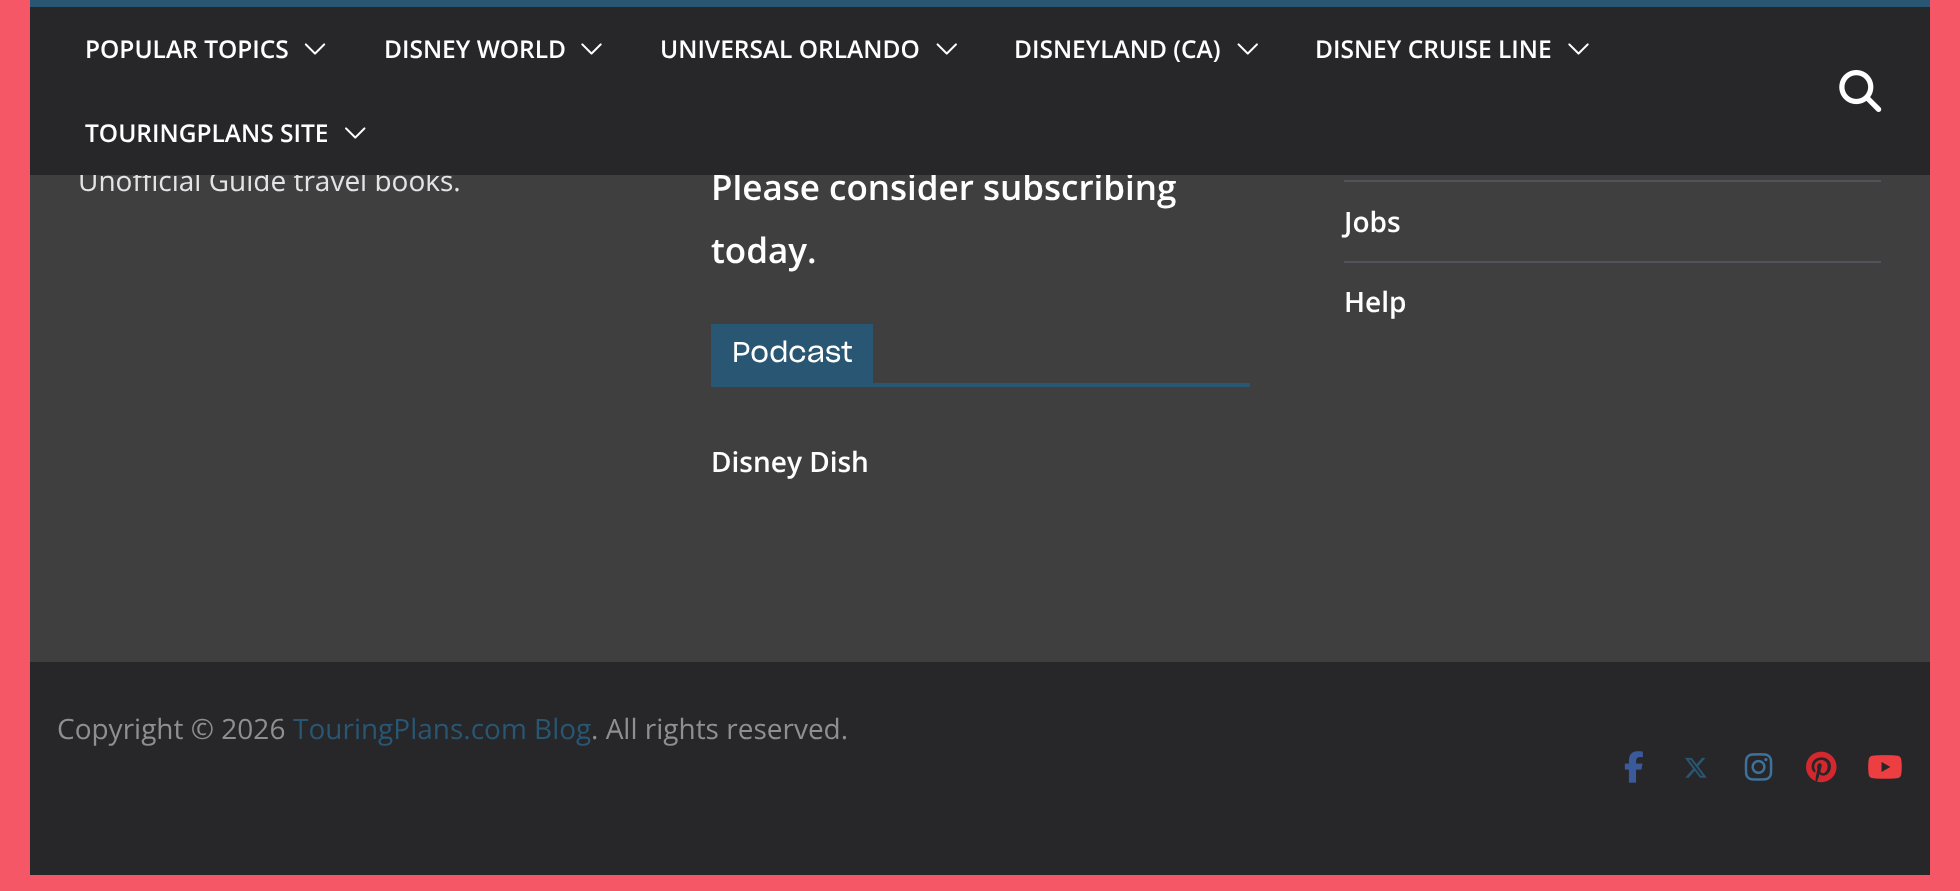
<svg xmlns="http://www.w3.org/2000/svg" width="1960" height="891" viewBox="0 0 1960 891">
  <rect width="100%" height="100%" fill="#f65766"/>
  <path d="M30 0h1900v7H30z" fill="#295672"/>
  <path d="M30 175h1900v487H30z" fill="#3f3f3f"/>
  <path d="M711 383h539v4H711z" fill="#295672"/>
  <path d="M711 324h162v59H711z" fill="#295672"/>
  <path d="M1344 180h537v2H1344z" fill="#52525b"/>
  <path d="M1344 261h537v2H1344z" fill="#52525b"/>
  <path d="M30 662h1900v213H30z" fill="#27272a"/>
  <image x="1624" y="751" width="19" height="32" href="img/6.png"/>
  <image x="1685" y="757" width="22" height="21" href="img/7.png"/>
  <image x="1744" y="753" width="29" height="28" href="img/8.png"/>
  <image x="1806" y="751" width="31" height="32" href="img/9.png"/>
  <image x="1868" y="755" width="34" height="24" href="img/10.png"/>
  <text x="78" y="191" font-family="Open Sans" font-size="28" fill="#e4e4e7">Unofficial Guide travel books.</text>
  <text x="711" y="200" font-family="Open Sans" font-size="35" font-weight="600" fill="#fff">Please consider subscribing</text>
  <path d="M30 7h1900v168H30z" fill="#27272a"/>
  <image x="345" y="127" width="21" height="12" href="img/4.png"/>
  <text x="85" y="142" font-family="Open Sans" font-size="24.5" font-weight="600" fill="#fff">TOURINGPLANS SITE</text>
  <image x="1568" y="43" width="21" height="12" href="img/2.png"/>
  <text x="1315" y="58" font-family="Open Sans" font-size="24.5" font-weight="600" fill="#fff">DISNEY CRUISE LINE</text>
  <image x="1237" y="43" width="21" height="12" href="img/3.png"/>
  <text x="1014" y="58" font-family="Open Sans" font-size="24.5" font-weight="600" fill="#fff">DISNEYLAND (CA)</text>
  <image x="936" y="43" width="21" height="12" href="img/3.png"/>
  <text x="660" y="58" font-family="Open Sans" font-size="24.5" font-weight="600" fill="#fff">UNIVERSAL ORLANDO</text>
  <image x="581" y="43" width="21" height="12" href="img/2.png"/>
  <text x="384" y="58" font-family="Open Sans" font-size="24.5" font-weight="600" fill="#fff">DISNEY WORLD</text>
  <image x="304" y="43" width="22" height="12" href="img/1.png"/>
  <text x="85" y="58" font-family="Open Sans" font-size="24.5" font-weight="600" fill="#fff">POPULAR TOPICS</text>
  <image x="1839" y="70" width="43" height="42" href="img/5.png"/>
  <text x="711" y="263" font-family="Open Sans" font-size="35" font-weight="600" fill="#fff">today.</text>
  <text x="732" y="362" font-family="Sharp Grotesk" font-size="28" fill="#fff">Podcast</text>
  <g font-family="Open Sans" font-size="28" font-weight="600" fill="#fff">
    <text x="711" y="472">Disney Dish</text>
    <text x="1344" y="232">Jobs</text>
    <text x="1344" y="312">Help</text>
  </g>
  <text x="57" y="739" font-family="Open Sans" font-size="28" fill="#8f8f8f">Copyright © 2026</text>
  <text x="293" y="739" font-family="Open Sans" font-size="28" fill="#295672">TouringPlans.com Blog</text>
  <text x="591" y="739" font-family="Open Sans" font-size="28" fill="#8f8f8f">. All rights reserved.</text>
</svg>
